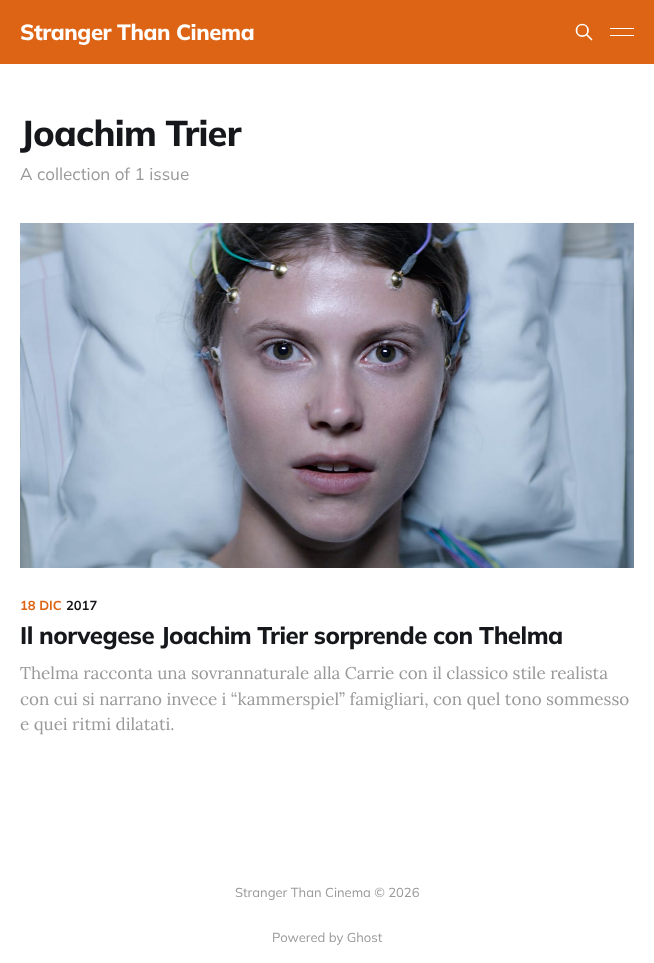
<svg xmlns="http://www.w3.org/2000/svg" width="654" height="963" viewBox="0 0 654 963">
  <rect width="100%" height="100%" fill="#fff"/>
  <path d="M0 0h654v64H0z" fill="#dd6414"/>
  <path d="M591.5 39.5L586.5 34.5M588 30.5C588 38 576.5 38 576.5 30.5C576.5 22.5 588 22.5 588 30.5Z" fill="none" stroke="#fff" stroke-width="1.7" stroke-linecap="round" stroke-linejoin="round"/>
  <path d="M610 28h24v1H610z" fill="#fff"/>
  <path d="M610 35h24v1H610z" fill="#fff"/>
  <image x="20" y="223" width="614" height="345" href="img/1.png"/>
  <text x="20" y="40" font-family="Mulish" font-size="22" font-weight="200" letter-spacing="-0.4" fill="#fff">Stranger Than Cinema</text>
  <text x="20" y="146" font-family="Mulish" font-size="36" font-weight="200" letter-spacing="-0.75" fill="#15171a">Joachim Trier</text>
  <text x="20" y="180" font-family="'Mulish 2'" font-size="17" font-weight="200" fill="#999">A collection of 1 issue</text>
  <text x="20" y="610" font-family="'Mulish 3'" font-size="13" font-weight="200" fill="#dd6414">18 DIC</text>
  <text x="66" y="610" font-family="'Mulish 3'" font-size="13" font-weight="200" fill="#15171a">2017</text>
  <text x="20" y="644" font-family="Mulish" font-size="24" font-weight="200" letter-spacing="-0.5" fill="#15171a">Il norvegese Joachim Trier sorprende con Thelma</text>
  <g font-family="Lora" font-size="17" fill="#999">
    <text x="20" y="679">Thelma racconta una sovrannaturale alla Carrie con il classico stile realista</text>
    <text x="20" y="705">con cui si narrano invece i “kammerspiel” famigliari, con quel tono sommesso</text>
    <text x="20" y="730">e quei ritmi dilatati.</text>
  </g>
  <g font-family="'Mulish 2'" font-size="13" font-weight="200" fill="#999">
    <text x="235" y="897">Stranger Than Cinema © 2026</text>
    <text x="272" y="942">Powered by Ghost</text>
  </g>
</svg>
